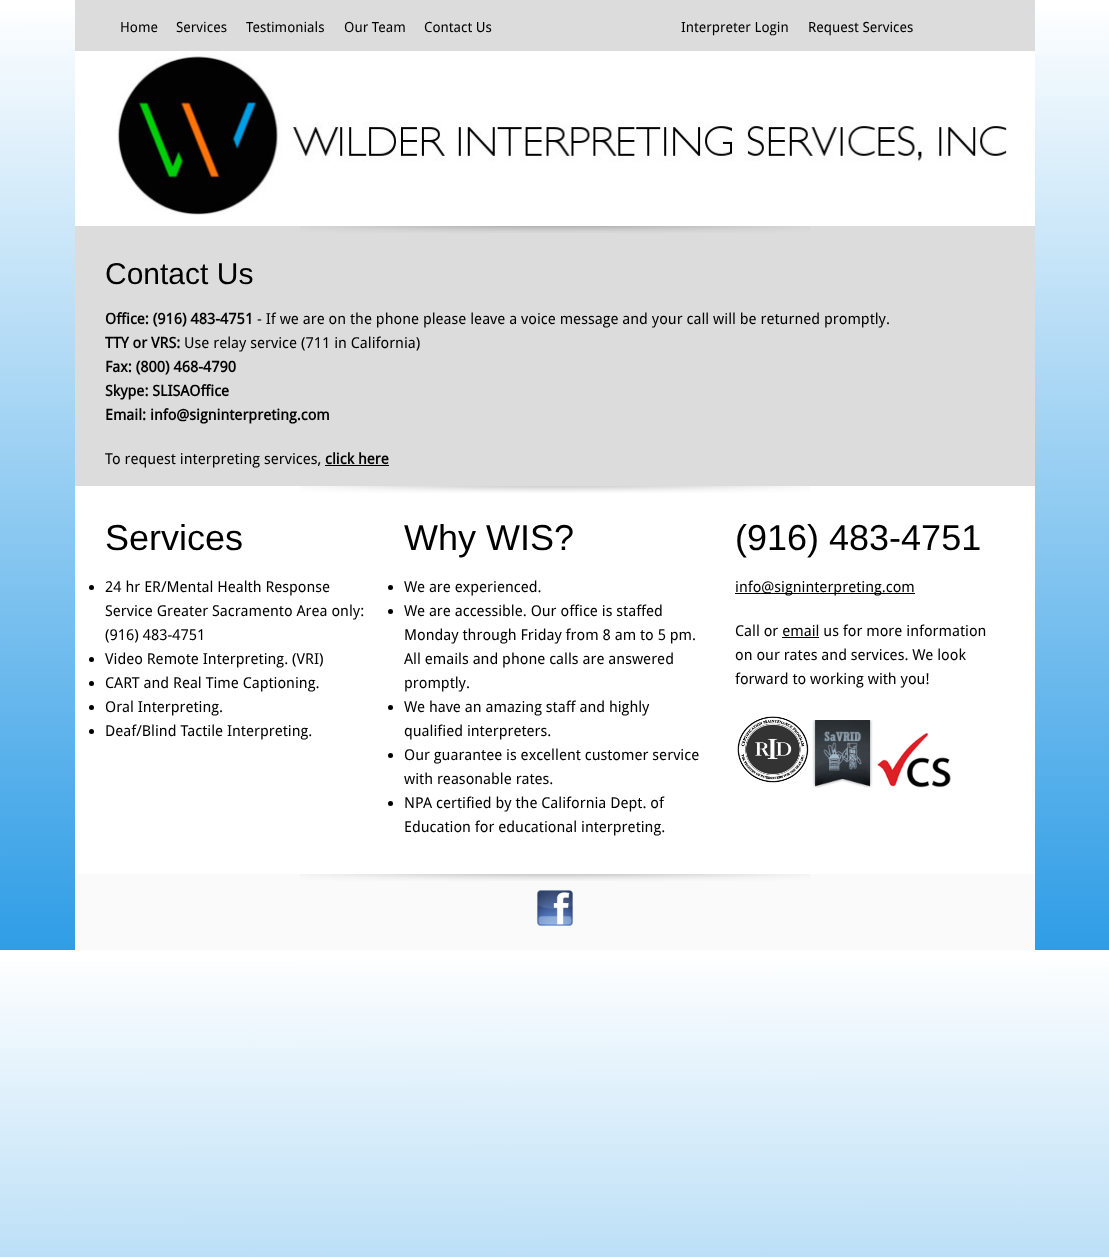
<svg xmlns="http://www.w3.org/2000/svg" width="1109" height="1257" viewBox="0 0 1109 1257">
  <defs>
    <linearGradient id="g1" gradientUnits="userSpaceOnUse" x1="554" y1="0" x2="555" y2="950"><stop offset="0" stop-color="#fff"/><stop offset="1" stop-color="#2f9de6"/></linearGradient>
    <linearGradient id="g2" gradientUnits="userSpaceOnUse" x1="554" y1="950" x2="555" y2="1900"><stop offset="0" stop-color="#fff"/><stop offset="1" stop-color="#2f9de6"/></linearGradient>
  </defs>
  <rect width="100%" height="100%" fill="#fff"/>
  <path d="M0 11h1109v939H0z" fill="url(#g1)"/>
  <path d="M0 961h1109v296H0z" fill="url(#g2)"/>
  <path d="M75 51h960v823H75z" fill="#fff"/>
  <path d="M75 0h960v51H75z" fill="#dcdcdc"/>
  <image x="117" y="51" width="891" height="164" href="img/1.png"/>
  <path d="M75 226h960v260H75z" fill="#dcdcdc"/>
  <image x="300" y="226" width="510" height="7" href="img/2.png"/>
  <path d="M325 465h64v1H325z" fill="#000"/>
  <image x="300" y="486" width="510" height="7" href="img/3.png"/>
  <circle cx="91.5" cy="587.5" r="2.5" fill="#000"/>
  <circle cx="91.5" cy="659.5" r="2.5" fill="#000"/>
  <circle cx="91.5" cy="683.5" r="2.5" fill="#000"/>
  <circle cx="91.5" cy="707.5" r="2.5" fill="#000"/>
  <circle cx="91.5" cy="731.5" r="2.5" fill="#000"/>
  <circle cx="390.5" cy="587.5" r="2.5" fill="#000"/>
  <circle cx="390.5" cy="611.5" r="2.5" fill="#000"/>
  <circle cx="390.5" cy="707.5" r="2.5" fill="#000"/>
  <circle cx="390.5" cy="755.5" r="2.5" fill="#000"/>
  <circle cx="390.5" cy="803.5" r="2.5" fill="#000"/>
  <path d="M735 593h180v1H735z" fill="#000"/>
  <path d="M782 637h37v1H782z" fill="#000"/>
  <image x="737" y="716" width="72" height="67" href="img/4.png"/>
  <image x="812" y="720" width="61" height="68" href="img/5.png"/>
  <image x="877" y="733" width="74" height="55" href="img/6.png"/>
  <path d="M75 874h960v76H75z" fill="#fafafa"/>
  <image x="300" y="874" width="510" height="7" href="img/7.png"/>
  <image x="536" y="889" width="38" height="37" href="img/8.png"/>
  <g font-family="Droid Sans" font-size="14" fill="#000">
    <text x="120" y="32">Home</text>
    <text x="176" y="32">Services</text>
    <text x="246" y="32">Testimonials</text>
    <text x="344" y="32">Our Team</text>
    <text x="424" y="32">Contact Us</text>
    <text x="681" y="32">Interpreter Login</text>
    <text x="808" y="32">Request Services</text>
  </g>
  <text x="105" y="284" font-family="Liberation Sans" font-size="30" fill="#000">Contact Us</text>
  <text x="105" y="324" font-family="Droid Sans" font-size="15" font-weight="bold" fill="#000">Office: (916) 483-4751</text>
  <text x="257" y="324" font-family="Droid Sans" font-size="15" fill="#000">- If we are on the phone please leave a voice message and your call will be returned promptly.</text>
  <text x="105" y="348" font-family="Droid Sans" font-size="15" font-weight="bold" fill="#000">TTY or VRS:</text>
  <text x="184" y="348" font-family="Droid Sans" font-size="15" fill="#000">Use relay service (711 in California)</text>
  <g font-family="Droid Sans" font-size="15" font-weight="bold" fill="#000">
    <text x="105" y="372">Fax: (800) 468-4790</text>
    <text x="105" y="396">Skype: SLISAOffice</text>
    <text x="105" y="420">Email: info@signinterpreting.com</text>
  </g>
  <text x="105" y="464" font-family="Droid Sans" font-size="15" fill="#000">To request interpreting services,</text>
  <text x="325" y="464" font-family="Droid Sans" font-size="15" font-weight="bold" fill="#000">click here</text>
  <text x="105" y="550" font-family="Liberation Sans" font-size="36" fill="#000">Services</text>
  <g font-family="Droid Sans" font-size="15" fill="#000">
    <text x="105" y="592">24 hr ER/Mental Health Response</text>
    <text x="105" y="616">Service Greater Sacramento Area only:</text>
    <text x="105" y="640">(916) 483-4751</text>
    <text x="105" y="664">Video Remote Interpreting. (VRI)</text>
    <text x="105" y="688">CART and Real Time Captioning.</text>
    <text x="105" y="712">Oral Interpreting.</text>
    <text x="105" y="736">Deaf/Blind Tactile Interpreting.</text>
  </g>
  <text x="404" y="550" font-family="Liberation Sans" font-size="36" fill="#000">Why WIS?</text>
  <g font-family="Droid Sans" font-size="15" fill="#000">
    <text x="404" y="592">We are experienced.</text>
    <text x="404" y="616">We are accessible. Our office is staffed</text>
    <text x="404" y="640">Monday through Friday from 8 am to 5 pm.</text>
    <text x="404" y="664">All emails and phone calls are answered</text>
    <text x="404" y="688">promptly.</text>
    <text x="404" y="712">We have an amazing staff and highly</text>
    <text x="404" y="736">qualified interpreters.</text>
    <text x="404" y="760">Our guarantee is excellent customer service</text>
    <text x="404" y="784">with reasonable rates.</text>
    <text x="404" y="808">NPA certified by the California Dept. of</text>
    <text x="404" y="832">Education for educational interpreting.</text>
  </g>
  <text x="735" y="550" font-family="Liberation Sans" font-size="36" fill="#000">(916) 483-4751</text>
  <g font-family="Droid Sans" font-size="15" fill="#000">
    <text x="735" y="592">info@signinterpreting.com</text>
    <text x="735" y="636">Call or email us for more information</text>
    <text x="735" y="660">on our rates and services. We look</text>
    <text x="735" y="684">forward to working with you!</text>
  </g>
</svg>
